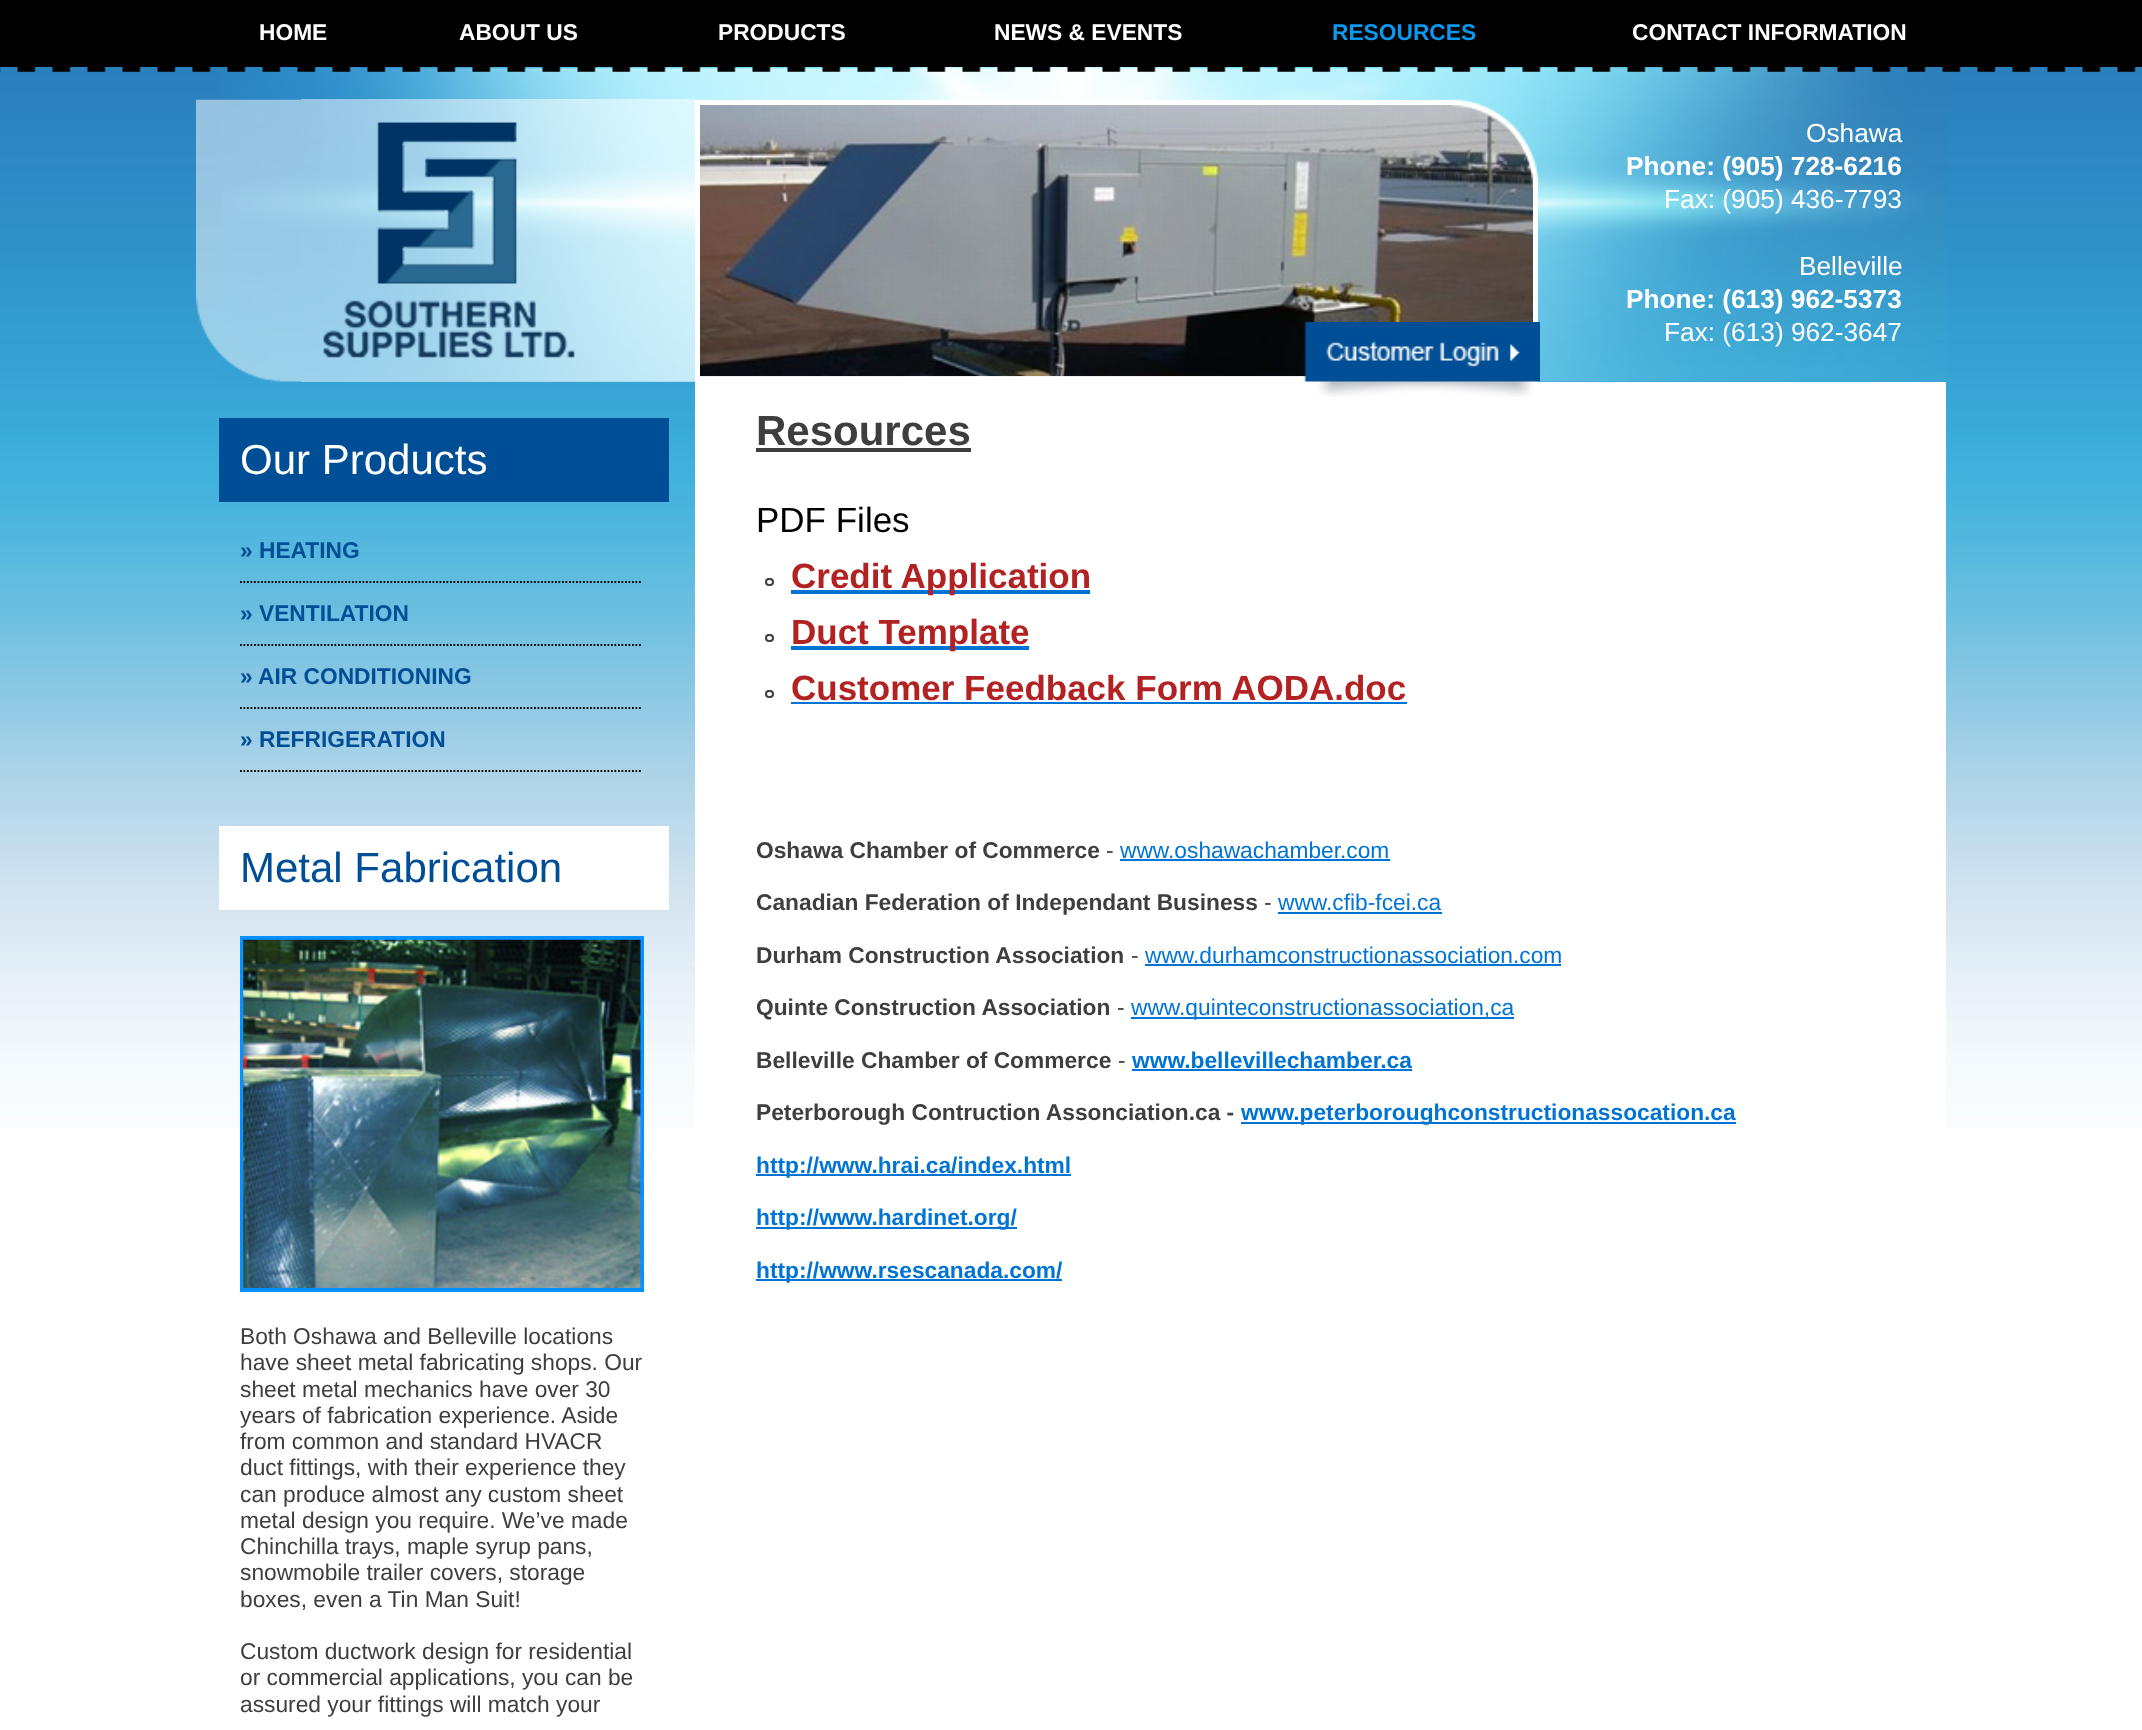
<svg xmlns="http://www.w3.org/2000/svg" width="2142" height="1730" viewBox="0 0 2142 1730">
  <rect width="100%" height="100%" fill="#fff"/>
  <image x="0" y="67" width="2142" height="1061" href="img/1.png"/>
  <image x="221" y="67" width="1727" height="315" href="img/2.png"/>
  <path d="M0 0h2142v67H0z" fill="#000"/>
  <image x="0" y="67" width="2136" height="5" href="img/3.png"/>
  <image x="196" y="99" width="105" height="283" href="img/4.png"/>
  <path d="M301 99h394v283H301z" fill="#ffffff80"/>
  <image x="323" y="122" width="252" height="236" href="img/5.png"/>
  <path d="M695 100h843v282H695z" fill="#fff"/>
  <image x="700" y="105" width="833" height="272" href="img/7.png"/>
  <image x="1450" y="99" width="89" height="89" href="img/6.png"/>
  <path d="M695 382h1251v746H695z" fill="#fff"/>
  <image x="1303" y="322" width="237" height="75" href="img/8.png"/>
  <path d="M219 418h450v84H219z" fill="#004e96"/>
  <path d="M240 582H642" fill="none" stroke="#000" stroke-width="1.8" stroke-dasharray="1.75 1.75"/>
  <path d="M240 645H642" fill="none" stroke="#000" stroke-width="1.8" stroke-dasharray="1.75 1.75"/>
  <path d="M240 708H642" fill="none" stroke="#000" stroke-width="1.8" stroke-dasharray="1.75 1.75"/>
  <path d="M240 771H642" fill="none" stroke="#000" stroke-width="1.8" stroke-dasharray="1.75 1.75"/>
  <path d="M219 826h450v84H219z" fill="#fff"/>
  <path d="M242 938h400v352H242z" fill="none" stroke="#0591ff" stroke-width="4"/>
  <image x="243" y="939" width="398" height="349" href="img/9.png"/>
  <path d="M756 448h215v4H756z" fill="#3e3e3e"/>
  <rect x="766" y="579" width="7" height="6" rx="3" fill="none" stroke="#3e3e3e" stroke-width="2"/>
  <path d="M791 590h299v4H791z" fill="#0074d5"/>
  <rect x="766" y="635" width="7" height="6" rx="3" fill="none" stroke="#3e3e3e" stroke-width="2"/>
  <path d="M791 646h238v4H791z" fill="#0074d5"/>
  <rect x="766" y="691" width="7" height="6" rx="3" fill="none" stroke="#3e3e3e" stroke-width="2"/>
  <path d="M791 702h616v2H791z" fill="#0074d5"/>
  <path d="M1120 859h270v2H1120z" fill="#0074d5"/>
  <path d="M1278 912h164v2H1278z" fill="#0074d5"/>
  <path d="M1145 964h416v2H1145z" fill="#0074d5"/>
  <path d="M1131 1017h383v2H1131z" fill="#0074d5"/>
  <path d="M1132 1069h280v2H1132z" fill="#0074d5"/>
  <path d="M1241 1122h495v2H1241z" fill="#0074d5"/>
  <path d="M756 1174h315v2H756z" fill="#0074d5"/>
  <path d="M756 1227h261v2H756z" fill="#0074d5"/>
  <path d="M756 1279h306v2H756z" fill="#0074d5"/>
  <g font-family="Liberation Sans" font-size="22.75" font-weight="bold" fill="#fff">
    <text x="259" y="40">HOME</text>
    <text x="459" y="40">ABOUT US</text>
    <text x="718" y="40">PRODUCTS</text>
    <text x="994" y="40">NEWS &amp; EVENTS</text>
  </g>
  <text x="1332" y="40" font-family="Liberation Sans" font-size="22.75" font-weight="bold" fill="#0999f0">RESOURCES</text>
  <text x="1632" y="40" font-family="Liberation Sans" font-size="22.75" font-weight="bold" fill="#fff">CONTACT INFORMATION</text>
  <text x="1806" y="142" font-family="Liberation Sans" font-size="26.25" fill="#fff">Oshawa</text>
  <text x="1626" y="175" font-family="Liberation Sans" font-size="26.25" font-weight="bold" fill="#fff">Phone: (905) 728-6216</text>
  <g font-family="Liberation Sans" font-size="26.25" fill="#fff">
    <text x="1664" y="208">Fax: (905) 436-7793</text>
    <text x="1799" y="275">Belleville</text>
  </g>
  <text x="1626" y="308" font-family="Liberation Sans" font-size="26.25" font-weight="bold" fill="#fff">Phone: (613) 962-5373</text>
  <text x="1664" y="341" font-family="Liberation Sans" font-size="26.25" fill="#fff">Fax: (613) 962-3647</text>
  <text x="240" y="474" font-family="Liberation Sans" font-size="42" fill="#fff">Our Products</text>
  <g font-family="Liberation Sans" font-size="22.75" font-weight="bold" fill="#004e95">
    <text x="240" y="558">» HEATING</text>
    <text x="240" y="621">» VENTILATION</text>
    <text x="240" y="684">»</text>
    <text x="258" y="684">AIR CONDITIONING</text>
    <text x="240" y="747">» REFRIGERATION</text>
  </g>
  <text x="240" y="882" font-family="Liberation Sans" font-size="42" fill="#004e95">Metal Fabrication</text>
  <g font-family="Liberation Sans" font-size="22.75" fill="#3e3e3e">
    <text x="240" y="1344">Both Oshawa and Belleville locations</text>
    <text x="240" y="1370">have sheet metal fabricating shops. Our</text>
    <text x="240" y="1397">sheet metal mechanics have over 30</text>
    <text x="240" y="1423">years of fabrication experience. Aside</text>
    <text x="240" y="1449">from common and standard HVACR</text>
    <text x="240" y="1475">duct fittings, with their experience they</text>
    <text x="240" y="1502">can produce almost any custom sheet</text>
    <text x="240" y="1528">metal design you require. We’ve made</text>
    <text x="240" y="1554">Chinchilla trays, maple syrup pans,</text>
    <text x="240" y="1580">snowmobile trailer covers, storage</text>
    <text x="240" y="1607">boxes, even a Tin Man Suit!</text>
    <text x="240" y="1659">Custom ductwork design for residential</text>
    <text x="240" y="1685">or commercial applications, you can be</text>
    <text x="240" y="1712">assured your fittings will match your</text>
  </g>
  <text x="756" y="445" font-family="Liberation Sans" font-size="42" font-weight="bold" fill="#3e3e3e">Resources</text>
  <text x="756" y="532" font-family="Liberation Sans" font-size="35" fill="#000">PDF Files</text>
  <g font-family="Liberation Sans" font-size="35" font-weight="bold" fill="#b22222">
    <text x="791" y="588">Credit Application</text>
    <text x="791" y="644">Duct Template</text>
    <text x="791" y="700">Customer Feedback Form AODA.doc</text>
  </g>
  <text x="756" y="858" font-family="Liberation Sans" font-size="22.75" font-weight="bold" fill="#3e3e3e">Oshawa Chamber of Commerce</text>
  <text x="1106" y="858" font-family="Liberation Sans" font-size="22.75" fill="#3e3e3e">-</text>
  <text x="1120" y="858" font-family="Liberation Sans" font-size="22.75" fill="#0074d5">www.oshawachamber.com</text>
  <text x="756" y="910" font-family="Liberation Sans" font-size="22.75" font-weight="bold" fill="#3e3e3e">Canadian Federation of Independant Business</text>
  <text x="1264" y="910" font-family="Liberation Sans" font-size="22.75" fill="#3e3e3e">-</text>
  <text x="1278" y="910" font-family="Liberation Sans" font-size="22.75" fill="#0074d5">www.cfib-fcei.ca</text>
  <text x="756" y="963" font-family="Liberation Sans" font-size="22.75" font-weight="bold" fill="#3e3e3e">Durham Construction Association</text>
  <text x="1131" y="963" font-family="Liberation Sans" font-size="22.75" fill="#3e3e3e">-</text>
  <text x="1145" y="963" font-family="Liberation Sans" font-size="22.75" fill="#0074d5">www.durhamconstructionassociation.com</text>
  <text x="756" y="1015" font-family="Liberation Sans" font-size="22.75" font-weight="bold" fill="#3e3e3e">Quinte Construction Association</text>
  <text x="1117" y="1015" font-family="Liberation Sans" font-size="22.75" fill="#3e3e3e">-</text>
  <text x="1131" y="1015" font-family="Liberation Sans" font-size="22.75" fill="#0074d5">www.quinteconstructionassociation,ca</text>
  <text x="756" y="1068" font-family="Liberation Sans" font-size="22.75" font-weight="bold" fill="#3e3e3e">Belleville Chamber of Commerce</text>
  <text x="1118" y="1068" font-family="Liberation Sans" font-size="22.75" fill="#3e3e3e">-</text>
  <text x="1132" y="1068" font-family="Liberation Sans" font-size="22.75" font-weight="bold" fill="#0074d5">www.bellevillechamber.ca</text>
  <text x="756" y="1120" font-family="Liberation Sans" font-size="22.75" font-weight="bold" fill="#3e3e3e">Peterborough Contruction Assonciation.ca -</text>
  <g font-family="Liberation Sans" font-size="22.75" font-weight="bold" fill="#0074d5">
    <text x="1241" y="1120">www.peterboroughconstructionassocation.ca</text>
    <text x="756" y="1173">http://www.hrai.ca/index.html</text>
    <text x="756" y="1225">http://www.hardinet.org/</text>
    <text x="756" y="1278">http://www.rsescanada.com/</text>
  </g>
</svg>
